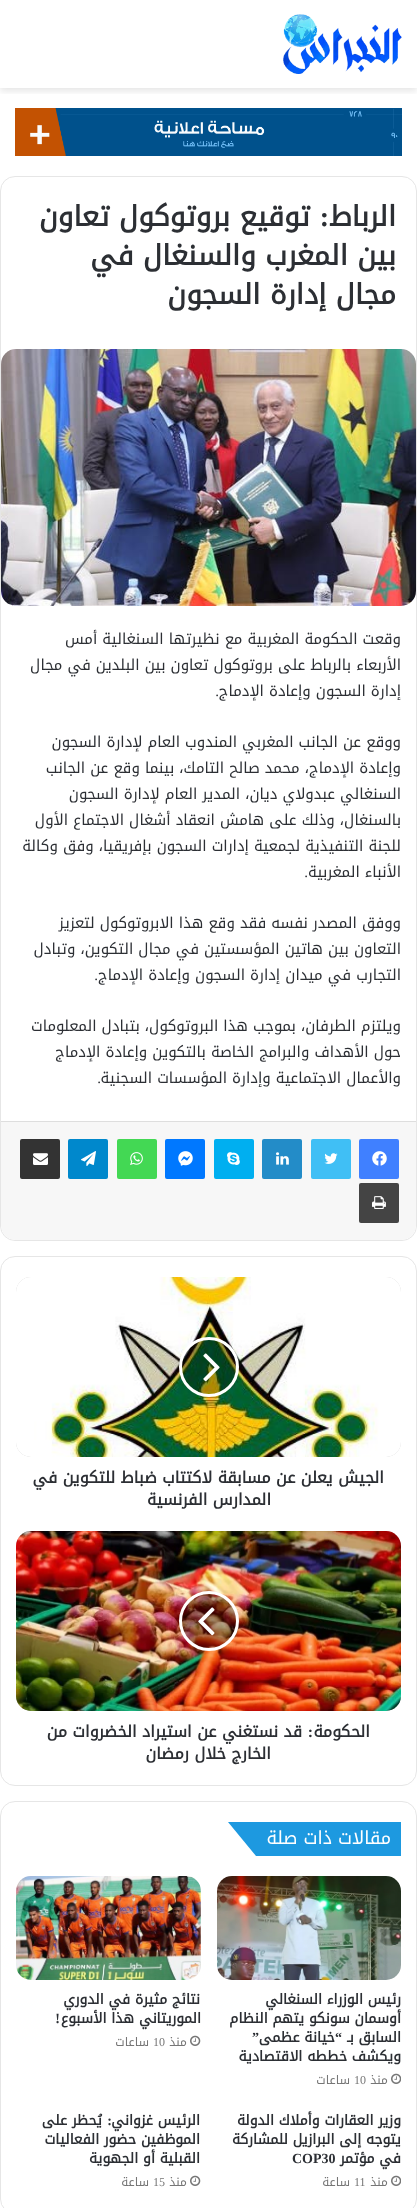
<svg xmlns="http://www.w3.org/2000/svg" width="417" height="2208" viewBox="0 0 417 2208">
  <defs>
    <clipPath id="clip1"><path d="M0 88h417v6H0z"/></clipPath>
  </defs>
  <rect width="100%" height="100%" fill="#fff"/>
  <g clip-path="url(#clip1)">
    <path d="M0 3h417v88H0z" fill="#0000001a" filter="blur(3.5px)"/>
  </g>
  <image x="283" y="14" width="119" height="60" href="img/1.png"/>
  <image x="15" y="108" width="387" height="48" href="img/2.png"/>
  <rect x="0.5" y="176.5" width="416" height="1064" rx="14.5" fill="none" stroke="#e6e6e6"/>
  <image x="1" y="349" width="415" height="257" href="img/3.png"/>
  <path d="M1 1121H416V1225C416 1233.5 409.5 1240 401 1240H16C7.5 1240 1 1233.5 1 1225Z" fill="#f7f7f7"/>
  <path d="M1 1121h415v1H1z" fill="#dedede"/>
  <rect x="359" y="1139" width="40" height="40" rx="2" fill="#4080ff"/>
  <image x="372" y="1151" width="15" height="15" href="img/4.png"/>
  <rect x="311" y="1139" width="40" height="40" rx="2" fill="#40bff5"/>
  <image x="324" y="1153" width="14" height="11" href="img/5.png"/>
  <rect x="262" y="1139" width="40" height="40" rx="2" fill="#238cc8"/>
  <image x="276" y="1152" width="13" height="13" href="img/6.png"/>
  <rect x="214" y="1139" width="40" height="40" rx="2" fill="#00aff0"/>
  <image x="227" y="1152" width="13" height="13" href="img/7.png"/>
  <rect x="165" y="1139" width="40" height="40" rx="2" fill="#0078ff"/>
  <image x="178" y="1151" width="15" height="15" href="img/8.png"/>
  <rect x="117" y="1139" width="40" height="40" rx="2" fill="#43d854"/>
  <image x="130" y="1152" width="13" height="13" href="img/9.png"/>
  <rect x="68" y="1139" width="40" height="40" rx="2" fill="#08c"/>
  <image x="81" y="1151" width="15" height="15" href="img/10.png"/>
  <rect x="20" y="1139" width="40" height="40" rx="2" fill="#333"/>
  <image x="33" y="1153" width="15" height="12" href="img/11.png"/>
  <rect x="359" y="1183" width="40" height="40" rx="2" fill="#444"/>
  <image x="372" y="1196" width="14" height="13" href="img/12.png"/>
  <rect x="0.5" y="1256.5" width="416" height="529" rx="14.5" fill="none" stroke="#e6e6e6"/>
  <rect x="16" y="1277" width="385" height="180" rx="15" fill="#ccc"/>
  <image x="16" y="1277" width="385" height="180" href="img/13.png"/>
  <circle cx="209" cy="1367" r="28.5" fill="#0000004d" stroke="#fff" stroke-width="3"/>
  <image x="203" y="1353" width="17" height="29" href="img/14.png"/>
  <rect x="16" y="1531" width="385" height="180" rx="15" fill="#ccc"/>
  <image x="16" y="1531" width="385" height="180" href="img/15.png"/>
  <circle cx="209" cy="1621" r="28.5" fill="#0000004d" stroke="#fff" stroke-width="3"/>
  <image x="198" y="1607" width="17" height="29" href="img/16.png"/>
  <rect x="0.5" y="1801.5" width="416" height="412" rx="14.5" fill="none" stroke="#e6e6e6"/>
  <path d="M330 1822h71v34H330z" fill="#1d99e0"/>
  <path d="M228 1822H330L358 1856H256Z" fill="#1d99e0"/>
  <image x="217" y="1876" width="184" height="104" href="img/17.png"/>
  <image x="391" y="2073" width="10" height="11" href="img/18.png"/>
  <image x="16" y="1876" width="185" height="104" href="img/19.png"/>
  <image x="190" y="2035" width="11" height="11" href="img/20.png"/>
  <image x="391" y="2175" width="10" height="11" href="img/18.png"/>
  <image x="190" y="2175" width="11" height="11" href="img/20.png"/>
  <text x="396" y="226" font-family="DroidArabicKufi" font-size="28" font-weight="bold" direction="rtl" fill="#2c2f34">الرباط</text>
  <text x="329" y="226" font-family="Liberation Serif" font-size="28" font-weight="bold" direction="rtl" fill="#2c2f34">:</text>
  <g font-family="DroidArabicKufi" font-size="28" font-weight="bold" direction="rtl" fill="#2c2f34">
    <text x="310" y="226">توقيع بروتوكول تعاون</text>
    <text x="396" y="265">بين المغرب والسنغال في</text>
    <text x="396" y="304">مجال إدارة السجون</text>
  </g>
  <g font-family="DroidArabicKufi" font-size="15" direction="rtl" fill="#2c2f34">
    <text x="401" y="644">وقعت الحكومة المغربية مع نظيرتها السنغالية أمس</text>
    <text x="401" y="670">الأربعاء بالرباط على بروتوكول تعاون بين البلدين في مجال</text>
    <text x="401" y="696">إدارة السجون وإعادة الإدماج</text>
  </g>
  <text x="219" y="696" font-family="Liberation Serif" font-size="15" direction="rtl" fill="#2c2f34">.</text>
  <g font-family="DroidArabicKufi" font-size="15" direction="rtl" fill="#2c2f34">
    <text x="401" y="747">ووقع عن الجانب المغربي المندوب العام لإدارة السجون</text>
    <text x="401" y="773">وإعادة الإدماج، محمد صالح التامك، بينما وقع عن الجانب</text>
    <text x="401" y="799">السنغالي عبدولاي ديان، المدير العام لإدارة السجون</text>
    <text x="401" y="825">بالسنغال، وذلك على هامش انعقاد أشغال الاجتماع الأول</text>
    <text x="401" y="851">للجنة التنفيذية لجمعية إدارات السجون بإفريقيا، وفق وكالة</text>
    <text x="401" y="877">الأنباء المغربية</text>
  </g>
  <text x="308" y="877" font-family="Liberation Serif" font-size="15" direction="rtl" fill="#2c2f34">.</text>
  <g font-family="DroidArabicKufi" font-size="15" direction="rtl" fill="#2c2f34">
    <text x="401" y="928">ووفق المصدر نفسه فقد وقع هذا الابروتوكول لتعزيز</text>
    <text x="401" y="954">التعاون بين هاتين المؤسستين في مجال التكوين، وتبادل</text>
    <text x="401" y="980">التجارب في ميدان إدارة السجون وإعادة الإدماج</text>
  </g>
  <text x="98" y="980" font-family="Liberation Serif" font-size="15" direction="rtl" fill="#2c2f34">.</text>
  <g font-family="DroidArabicKufi" font-size="15" direction="rtl" fill="#2c2f34">
    <text x="401" y="1031">ويلتزم الطرفان، بموجب هذا البروتوكول، بتبادل المعلومات</text>
    <text x="401" y="1057">حول الأهداف والبرامج الخاصة بالتكوين وإعادة الإدماج</text>
    <text x="401" y="1083">والأعمال الاجتماعية وإدارة المؤسسات السجنية</text>
  </g>
  <text x="101" y="1083" font-family="Liberation Serif" font-size="15" direction="rtl" fill="#2c2f34">.</text>
  <g font-family="DroidArabicKufi" font-size="16" font-weight="bold" direction="rtl" fill="#2c2f34">
    <text x="384" y="1483">الجيش يعلن عن مسابقة لاكتتاب ضباط للتكوين في</text>
    <text x="271" y="1505">المدارس الفرنسية</text>
    <text x="370" y="1737">الحكومة</text>
  </g>
  <text x="313" y="1737" font-family="Liberation Serif" font-size="16" font-weight="bold" direction="rtl" fill="#2c2f34">:</text>
  <g font-family="DroidArabicKufi" font-size="16" font-weight="bold" direction="rtl" fill="#2c2f34">
    <text x="302" y="1737">قد نستغني عن استيراد الخضروات من</text>
    <text x="271" y="1759">الخارج خلال رمضان</text>
  </g>
  <text x="391" y="1844" font-family="DroidArabicKufi" font-size="18" direction="rtl" fill="#fff">مقالات ذات صلة</text>
  <g font-family="DroidArabicKufi" font-size="14" font-weight="bold" direction="rtl" fill="#2c2f34">
    <text x="401" y="2004">رئيس الوزراء السنغالي</text>
    <text x="401" y="2023">أوسمان سونكو يتهم النظام</text>
    <text x="401" y="2042">السابق بـ</text>
  </g>
  <text x="342" y="2042" font-family="Liberation Serif" font-size="14" font-weight="bold" direction="rtl" fill="#2c2f34">“</text>
  <text x="335" y="2042" font-family="DroidArabicKufi" font-size="14" font-weight="bold" direction="rtl" fill="#2c2f34">خيانة عظمى</text>
  <text x="259" y="2042" font-family="Liberation Serif" font-size="14" font-weight="bold" direction="rtl" fill="#2c2f34">”</text>
  <text x="401" y="2061" font-family="DroidArabicKufi" font-size="14" font-weight="bold" direction="rtl" fill="#2c2f34">ويكشف خططه الاقتصادية</text>
  <text x="388" y="2084" font-family="DroidArabicKufi" font-size="12" direction="rtl" fill="#767676">منذ</text>
  <text x="354" y="2084" font-family="Liberation Serif" font-size="12" fill="#767676">10</text>
  <text x="350" y="2084" font-family="DroidArabicKufi" font-size="12" direction="rtl" fill="#767676">ساعات</text>
  <g font-family="DroidArabicKufi" font-size="14" font-weight="bold" direction="rtl" fill="#2c2f34">
    <text x="200" y="2004">نتائج مثيرة في الدوري</text>
    <text x="201" y="2023">الموريتاني هذا الأسبوع</text>
  </g>
  <text x="60" y="2023" font-family="Liberation Serif" font-size="14" font-weight="bold" direction="rtl" fill="#2c2f34">!</text>
  <text x="187" y="2046" font-family="DroidArabicKufi" font-size="12" direction="rtl" fill="#767676">منذ</text>
  <text x="153" y="2046" font-family="Liberation Serif" font-size="12" fill="#767676">10</text>
  <text x="149" y="2046" font-family="DroidArabicKufi" font-size="12" direction="rtl" fill="#767676">ساعات</text>
  <g font-family="DroidArabicKufi" font-size="14" font-weight="bold" direction="rtl" fill="#2c2f34">
    <text x="401" y="2125">وزير العقارات وأملاك الدولة</text>
    <text x="401" y="2144">يتوجه إلى البرازيل للمشاركة</text>
    <text x="401" y="2163">في مؤتمر</text>
  </g>
  <text x="292" y="2163" font-family="Liberation Serif" font-size="14" font-weight="bold" fill="#2c2f34">COP30</text>
  <text x="388" y="2186" font-family="DroidArabicKufi" font-size="12" direction="rtl" fill="#767676">منذ</text>
  <text x="354" y="2186" font-family="Liberation Serif" font-size="12" fill="#767676">11</text>
  <text x="350" y="2186" font-family="DroidArabicKufi" font-size="12" direction="rtl" fill="#767676">ساعة</text>
  <text x="200" y="2125" font-family="DroidArabicKufi" font-size="14" font-weight="bold" direction="rtl" fill="#2c2f34">الرئيس غزواني</text>
  <text x="112" y="2125" font-family="Liberation Serif" font-size="14" font-weight="bold" direction="rtl" fill="#2c2f34">:</text>
  <g font-family="DroidArabicKufi" font-size="14" font-weight="bold" direction="rtl" fill="#2c2f34">
    <text x="102" y="2125">يُحظر على</text>
    <text x="200" y="2144">الموظفين حضور الفعاليات</text>
    <text x="200" y="2163">القبلية أو الجهوية</text>
  </g>
  <text x="187" y="2186" font-family="DroidArabicKufi" font-size="12" direction="rtl" fill="#767676">منذ</text>
  <text x="153" y="2186" font-family="Liberation Serif" font-size="12" fill="#767676">15</text>
  <text x="149" y="2186" font-family="DroidArabicKufi" font-size="12" direction="rtl" fill="#767676">ساعة</text>
</svg>
